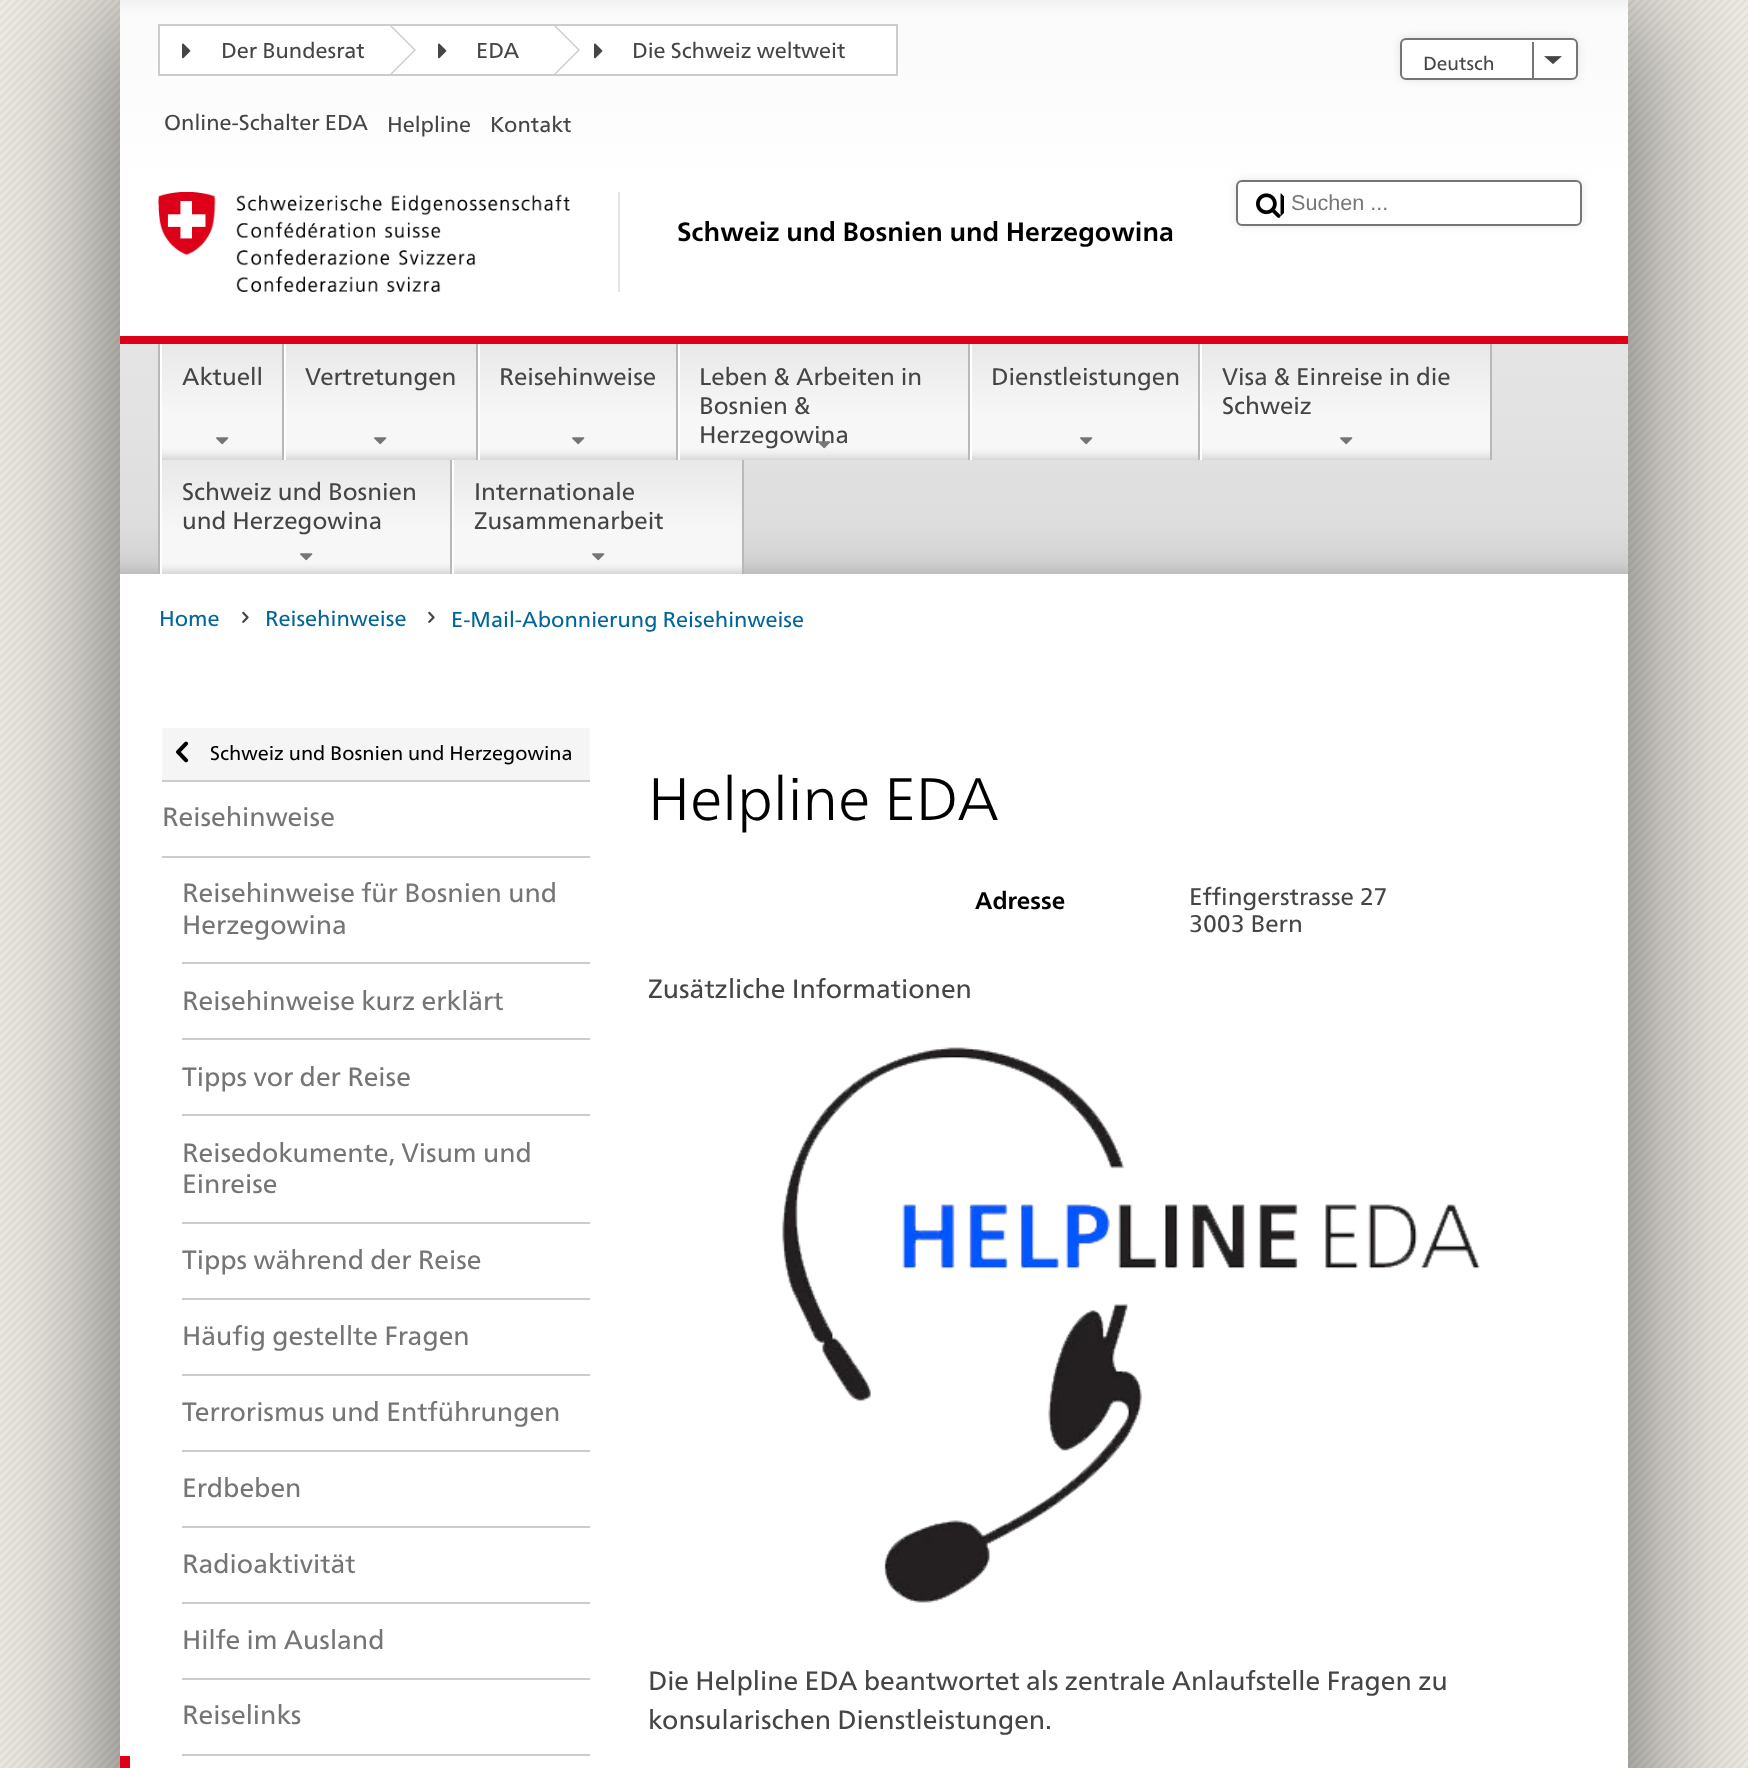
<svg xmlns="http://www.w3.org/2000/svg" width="1748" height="1768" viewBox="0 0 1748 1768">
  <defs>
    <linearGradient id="g1" gradientUnits="userSpaceOnUse" x1="874" y1="0" x2="874" y2="192"><stop offset="0" stop-color="#f2f2f2"/><stop offset="0.07" stop-color="#fafafa"/><stop offset="1" stop-color="#fff"/></linearGradient>
    <linearGradient id="g2" gradientUnits="userSpaceOnUse" x1="874" y1="344" x2="874" y2="574"><stop offset="0" stop-color="#e4e4e4"/><stop offset="0.39" stop-color="#e2e2e2"/><stop offset="0.79" stop-color="#ddd"/><stop offset="0.91" stop-color="#d5d5d5"/><stop offset="0.95" stop-color="#cfcfcf"/><stop offset="1" stop-color="#bebebe"/></linearGradient>
    <linearGradient id="g3" gradientUnits="userSpaceOnUse" x1="222" y1="344" x2="222" y2="460"><stop offset="0" stop-color="#e8e8e8"/><stop offset="0.61" stop-color="#f7f7f7"/><stop offset="0.89" stop-color="#f7f7f7"/><stop offset="0.91" stop-color="#f5f5f5"/><stop offset="0.95" stop-color="#ececec"/><stop offset="1" stop-color="#d7d7d7"/></linearGradient>
    <linearGradient id="g4" gradientUnits="userSpaceOnUse" x1="381" y1="344" x2="381" y2="460"><stop offset="0" stop-color="#e8e8e8"/><stop offset="0.61" stop-color="#f7f7f7"/><stop offset="0.89" stop-color="#f7f7f7"/><stop offset="0.91" stop-color="#f5f5f5"/><stop offset="0.95" stop-color="#ececec"/><stop offset="1" stop-color="#d7d7d7"/></linearGradient>
    <linearGradient id="g5" gradientUnits="userSpaceOnUse" x1="578" y1="344" x2="578" y2="460"><stop offset="0" stop-color="#e8e8e8"/><stop offset="0.61" stop-color="#f7f7f7"/><stop offset="0.89" stop-color="#f7f7f7"/><stop offset="0.91" stop-color="#f5f5f5"/><stop offset="0.95" stop-color="#ececec"/><stop offset="1" stop-color="#d7d7d7"/></linearGradient>
    <linearGradient id="g6" gradientUnits="userSpaceOnUse" x1="824" y1="344" x2="824" y2="460"><stop offset="0" stop-color="#e8e8e8"/><stop offset="0.61" stop-color="#f7f7f7"/><stop offset="0.89" stop-color="#f7f7f7"/><stop offset="0.91" stop-color="#f5f5f5"/><stop offset="0.95" stop-color="#ececec"/><stop offset="1" stop-color="#d7d7d7"/></linearGradient>
    <linearGradient id="g7" gradientUnits="userSpaceOnUse" x1="1085" y1="344" x2="1085" y2="460"><stop offset="0" stop-color="#e8e8e8"/><stop offset="0.61" stop-color="#f7f7f7"/><stop offset="0.89" stop-color="#f7f7f7"/><stop offset="0.91" stop-color="#f5f5f5"/><stop offset="0.95" stop-color="#ececec"/><stop offset="1" stop-color="#d7d7d7"/></linearGradient>
    <linearGradient id="g8" gradientUnits="userSpaceOnUse" x1="1346" y1="344" x2="1346" y2="460"><stop offset="0" stop-color="#e8e8e8"/><stop offset="0.61" stop-color="#f7f7f7"/><stop offset="0.89" stop-color="#f7f7f7"/><stop offset="0.91" stop-color="#f5f5f5"/><stop offset="0.95" stop-color="#ececec"/><stop offset="1" stop-color="#d7d7d7"/></linearGradient>
    <linearGradient id="g9" gradientUnits="userSpaceOnUse" x1="306" y1="460" x2="306" y2="574"><stop offset="0" stop-color="#e8e8e8"/><stop offset="0.61" stop-color="#f7f7f7"/><stop offset="0.89" stop-color="#f7f7f7"/><stop offset="0.91" stop-color="#f5f5f5"/><stop offset="0.95" stop-color="#ececec"/><stop offset="1" stop-color="#d7d7d7"/></linearGradient>
    <linearGradient id="g10" gradientUnits="userSpaceOnUse" x1="598" y1="460" x2="598" y2="574"><stop offset="0" stop-color="#e8e8e8"/><stop offset="0.61" stop-color="#f7f7f7"/><stop offset="0.89" stop-color="#f7f7f7"/><stop offset="0.91" stop-color="#f5f5f5"/><stop offset="0.95" stop-color="#ececec"/><stop offset="1" stop-color="#d7d7d7"/></linearGradient>
  </defs>
  <rect width="100%" height="100%" fill="#fff"/>
  <image x="0" y="0" width="1748" height="1768" href="img/1.png"/>
  <path d="M120 0h1508v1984H120z" fill="#00000099" filter="blur(72px)"/>
  <path d="M120 192h1508v1576H120z" fill="#fff"/>
  <path d="M120 0h1508v192H120z" fill="url(#g1)"/>
  <path d="M159 25h738v50H159z" fill="#fff" stroke="#ccc" stroke-width="2"/>
  <path d="M390 76V24L416 50Z" fill="#ccc"/>
  <image x="182" y="43" width="9" height="16" href="img/2.png"/>
  <path d="M390 74V26L414 50Z" fill="#fff"/>
  <path d="M554 76V24L580 50Z" fill="#ccc"/>
  <image x="438" y="43" width="9" height="16" href="img/2.png"/>
  <path d="M554 74V26L578 50Z" fill="#fff"/>
  <image x="594" y="43" width="9" height="16" href="img/2.png"/>
  <rect x="1400" y="38" width="178" height="42" rx="6" fill="#0000001a" filter="blur(4px)"/>
  <rect x="1401" y="39" width="176" height="40" rx="5" fill="#fff" stroke="#757575" stroke-width="2"/>
  <image x="1544" y="56" width="18" height="8" href="img/3.png"/>
  <path d="M1532 42h2v36H1532z" fill="#757575"/>
  <rect x="1236" y="180" width="346" height="46" rx="6" fill="#0000001a" filter="blur(4px)"/>
  <rect x="1237" y="181" width="344" height="44" rx="5" fill="#fff" stroke="#757575" stroke-width="2"/>
  <image x="1256" y="193" width="28" height="25" href="img/4.png"/>
  <image x="158" y="192" width="412" height="100" href="img/5.png"/>
  <path d="M618 192h2v100H618z" fill="#e5e5e5"/>
  <path d="M120 344h1508v230H120z" fill="url(#g2)"/>
  <path d="M120 336h1508v8H120z" fill="#dc0018"/>
  <path d="M158 344h2v230H158z" fill="#b8b8b8"/>
  <path d="M162 344h120v116H162z" fill="url(#g3)"/>
  <path d="M282 344h2v116H282z" fill="#b8b8b8"/>
  <path d="M160 344h2v230H160z" fill="#fff"/>
  <image x="216" y="437" width="13" height="8" href="img/6.png"/>
  <path d="M286 344h190v116H286z" fill="url(#g4)"/>
  <path d="M476 344h2v116H476z" fill="#b8b8b8"/>
  <path d="M284 344h2v116H284z" fill="#fff"/>
  <image x="374" y="437" width="13" height="8" href="img/6.png"/>
  <path d="M480 344h196v116H480z" fill="url(#g5)"/>
  <path d="M676 344h2v116H676z" fill="#b8b8b8"/>
  <path d="M478 344h2v116H478z" fill="#fff"/>
  <image x="572" y="437" width="13" height="8" href="img/6.png"/>
  <path d="M680 344h288v116H680z" fill="url(#g6)"/>
  <path d="M968 344h2v116H968z" fill="#b8b8b8"/>
  <path d="M678 344h2v116H678z" fill="#fff"/>
  <path d="M972 344h226v116H972z" fill="url(#g7)"/>
  <path d="M1198 344h2v116H1198z" fill="#b8b8b8"/>
  <path d="M970 344h2v116H970z" fill="#fff"/>
  <image x="1080" y="437" width="13" height="8" href="img/6.png"/>
  <path d="M1202 344h288v116H1202z" fill="url(#g8)"/>
  <path d="M1490 344h2v116H1490z" fill="#b8b8b8"/>
  <path d="M1200 344h2v116H1200z" fill="#fff"/>
  <image x="1340" y="437" width="13" height="8" href="img/6.png"/>
  <path d="M162 460h288v114H162z" fill="url(#g9)"/>
  <path d="M450 460h2v114H450z" fill="#b8b8b8"/>
  <image x="300" y="553" width="13" height="8" href="img/6.png"/>
  <path d="M454 460h288v114H454z" fill="url(#g10)"/>
  <path d="M742 460h2v114H742z" fill="#b8b8b8"/>
  <path d="M452 460h2v114H452z" fill="#fff"/>
  <image x="592" y="553" width="13" height="8" href="img/6.png"/>
  <image x="242" y="611" width="7" height="12" href="img/8.png"/>
  <image x="428" y="611" width="7" height="12" href="img/8.png"/>
  <path d="M162 728h428v52H162z" fill="#f5f5f5"/>
  <path d="M162 780h428v2H162z" fill="#ccc"/>
  <image x="176" y="741" width="13" height="22" href="img/9.png"/>
  <path d="M162 856h428v2H162z" fill="#ccc"/>
  <path d="M182 962h408v2H182z" fill="#ccc"/>
  <path d="M182 1038h408v2H182z" fill="#ccc"/>
  <path d="M182 1114h408v2H182z" fill="#ccc"/>
  <path d="M182 1222h408v2H182z" fill="#ccc"/>
  <path d="M182 1298h408v2H182z" fill="#ccc"/>
  <path d="M182 1374h408v2H182z" fill="#ccc"/>
  <path d="M182 1450h408v2H182z" fill="#ccc"/>
  <path d="M182 1526h408v2H182z" fill="#ccc"/>
  <path d="M182 1602h408v2H182z" fill="#ccc"/>
  <path d="M182 1678h408v2H182z" fill="#ccc"/>
  <path d="M182 1754h408v2H182z" fill="#ccc"/>
  <path d="M120 1756h10v12H120z" fill="#dc0018"/>
  <image x="782" y="1047" width="698" height="556" href="img/10.png"/>
  <g font-family="'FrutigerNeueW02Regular'" font-size="21.6" fill="#454545">
    <text x="221" y="58">Der Bundesrat</text>
    <text x="476" y="58">EDA</text>
    <text x="632" y="58">Die Schweiz weltweit</text>
  </g>
  <text x="1423" y="70" font-family="'FrutigerNeueW02Regular'" font-size="19" fill="#454545">Deutsch</text>
  <g font-family="'FrutigerNeueW02Regular'" font-size="21.6" fill="#454545">
    <text x="164" y="130">Online-Schalter EDA</text>
    <text x="387" y="132">Helpline</text>
    <text x="490" y="132">Kontakt</text>
  </g>
  <text x="1291" y="210" font-family="Liberation Sans" font-size="21.6" fill="#757575">Suchen ...</text>
  <text x="677" y="241" font-family="'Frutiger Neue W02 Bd'" font-size="26.4" font-weight="bold" fill="#000">Schweiz und Bosnien und Herzegowina</text>
  <g font-family="'FrutigerNeueW02Regular'" font-size="24" fill="#454545">
    <text x="182" y="385">Aktuell</text>
    <text x="305" y="385">Vertretungen</text>
    <text x="499" y="385">Reisehinweise</text>
    <text x="699" y="385">Leben &amp; Arbeiten in</text>
    <text x="699" y="414">Bosnien &amp;</text>
    <text x="699" y="443">Herzegowina</text>
  </g>
  <image x="818" y="441" width="13" height="8" href="img/7.png"/>
  <g font-family="'FrutigerNeueW02Regular'" font-size="24" fill="#454545">
    <text x="991" y="385">Dienstleistungen</text>
    <text x="1222" y="385">Visa &amp; Einreise in die</text>
    <text x="1222" y="414">Schweiz</text>
    <text x="182" y="500">Schweiz und Bosnien</text>
    <text x="182" y="529">und Herzegowina</text>
    <text x="474" y="500">Internationale</text>
    <text x="474" y="529">Zusammenarbeit</text>
  </g>
  <g font-family="'FrutigerNeueW02Regular'" font-size="21.6" fill="#069">
    <text x="159" y="626">Home</text>
    <text x="265" y="626">Reisehinweise</text>
    <text x="451" y="627">E-Mail-Abonnierung Reisehinweise</text>
  </g>
  <text x="210" y="760" font-family="'FrutigerNeueW02Regular'" font-size="19.75" fill="#000">Schweiz und Bosnien und Herzegowina</text>
  <g font-family="'FrutigerNeueW02Regular'" font-size="26.4" fill="#757575">
    <text x="162" y="826">Reisehinweise</text>
    <text x="182" y="902">Reisehinweise für Bosnien und</text>
    <text x="182" y="934">Herzegowina</text>
    <text x="182" y="1010">Reisehinweise kurz erklärt</text>
    <text x="182" y="1086">Tipps vor der Reise</text>
    <text x="182" y="1162">Reisedokumente, Visum und</text>
    <text x="182" y="1193">Einreise</text>
    <text x="182" y="1269">Tipps während der Reise</text>
    <text x="182" y="1345">Häufig gestellte Fragen</text>
    <text x="182" y="1421">Terrorismus und Entführungen</text>
    <text x="182" y="1497">Erdbeben</text>
    <text x="182" y="1573">Radioaktivität</text>
    <text x="182" y="1649">Hilfe im Ausland</text>
    <text x="182" y="1724">Reiselinks</text>
  </g>
  <text x="648" y="820" font-family="'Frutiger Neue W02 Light'" font-size="60" font-weight="300" fill="#000">Helpline EDA</text>
  <text x="975" y="909" font-family="'Frutiger Neue W02 Bd'" font-size="24" font-weight="bold" fill="#000">Adresse</text>
  <g font-family="'FrutigerNeueW02Regular'" font-size="24" fill="#454545">
    <text x="1189" y="905">Effingerstrasse 27</text>
    <text x="1189" y="932">3003 Bern</text>
  </g>
  <g font-family="'FrutigerNeueW02Regular'" font-size="26.4" fill="#454545">
    <text x="648" y="998">Zusätzliche Informationen</text>
    <text x="648" y="1690">Die Helpline EDA beantwortet als zentrale Anlaufstelle Fragen zu</text>
    <text x="648" y="1729">konsularischen Dienstleistungen.</text>
  </g>
</svg>
